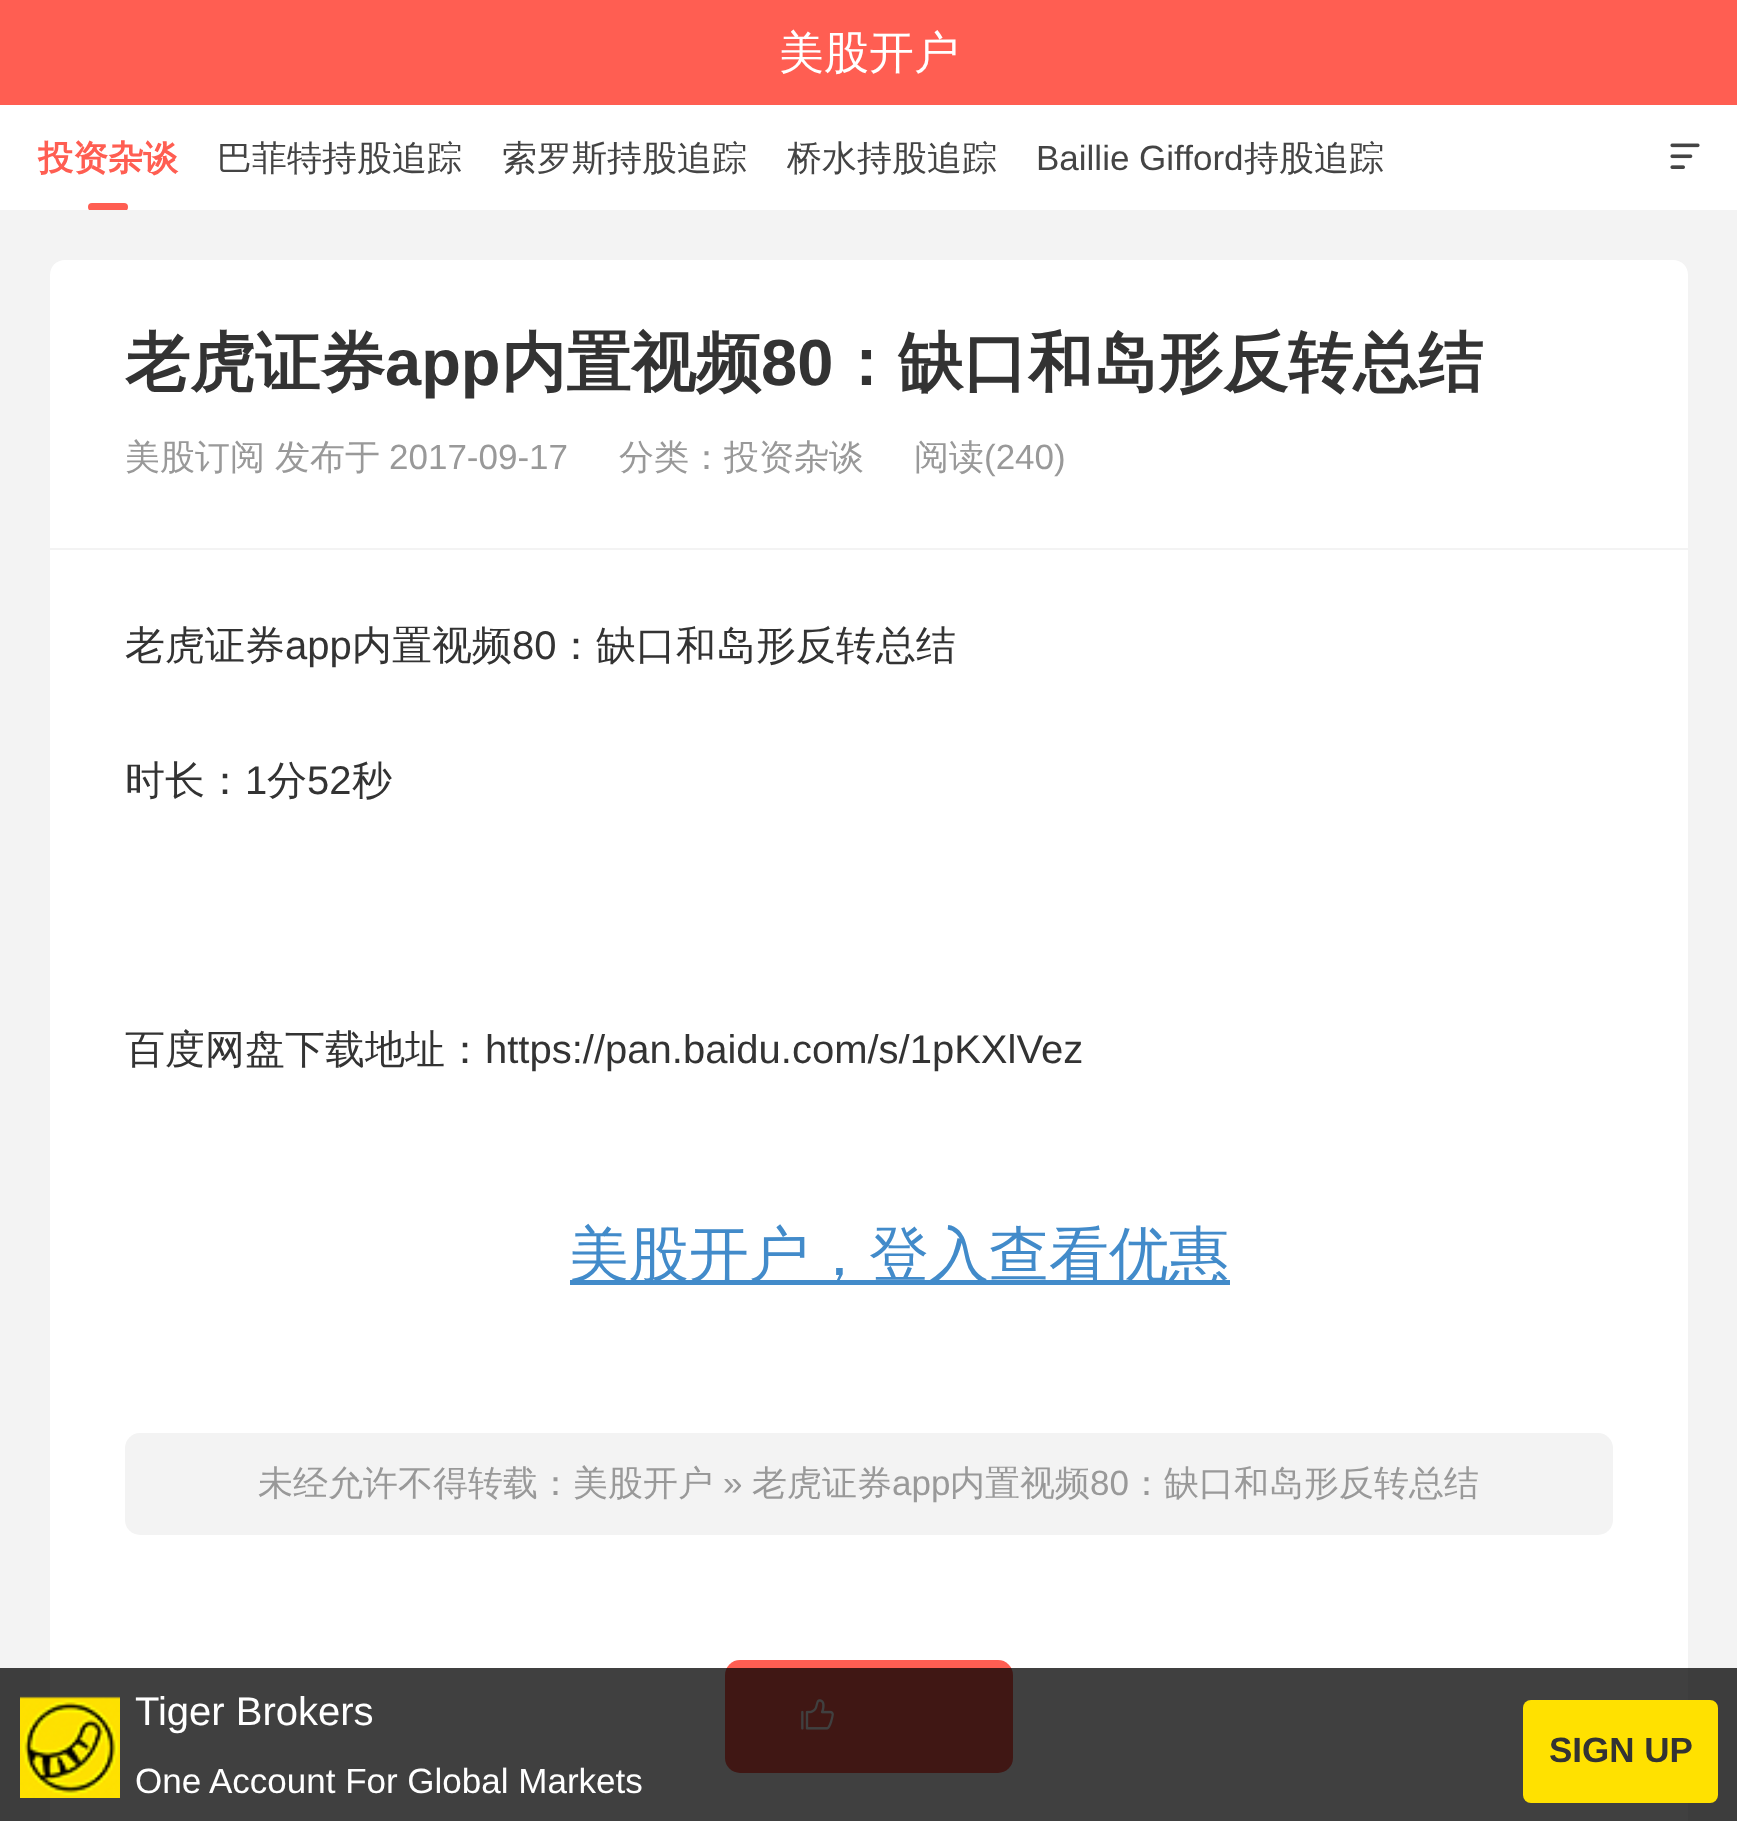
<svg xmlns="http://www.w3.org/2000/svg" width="1737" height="1821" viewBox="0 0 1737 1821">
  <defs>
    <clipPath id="clip1"><path d="M0 105h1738v105H0z"/></clipPath>
  </defs>
  <rect width="100%" height="100%" fill="#f3f3f3"/>
  <path d="M0 105h1737v105H0z" fill="#fff"/>
  <path d="M0 0h1737v105H0z" fill="#ff5e52"/>
  <g clip-path="url(#clip1)">
    <rect x="88" y="203" width="40" height="8" rx="4" fill="#ff5e52"/>
  </g>
  <image x="1670" y="143" width="30" height="26" href="img/1.png"/>
  <path d="M65 260H1673C1681.5 260 1688 266.5 1688 275V550H50V275C50 266.5 56.5 260 65 260Z" fill="#fff"/>
  <path d="M50 548h1638v2H50z" fill="#f3f3f3"/>
  <path d="M50 550h1638v1271H50z" fill="#fff"/>
  <rect x="725" y="1660" width="288" height="113" rx="15" fill="#ff5e52"/>
  <image x="801" y="1699" width="33" height="31" href="img/2.png"/>
  <path d="M570 1280h660v5H570z" fill="#428bca"/>
  <rect x="125" y="1433" width="1488" height="102" rx="15" fill="#f3f3f3"/>
  <path d="M0 1668h1737v153H0z" fill="#000000bf"/>
  <image x="20" y="1696" width="100" height="102" href="img/3.png"/>
  <rect x="1523" y="1700" width="195" height="103" rx="8" fill="#ffe100"/>
  <text x="779" y="68" font-family="WenQuanYi Zen Hei" font-size="45" font-weight="500" fill="#fff">美股开户</text>
  <text x="38" y="170" font-family="WenQuanYi Zen Hei" font-size="35" font-weight="bold" fill="#ff5e52">投资杂谈</text>
  <g font-family="WenQuanYi Zen Hei" font-size="35" font-weight="500" fill="#444">
    <text x="217" y="170">巴菲特持股追踪</text>
    <text x="502" y="170">索罗斯持股追踪</text>
    <text x="787" y="170">桥水持股追踪</text>
  </g>
  <text x="1036" y="170" font-family="Liberation Sans" font-size="35" fill="#444">Baillie Gifford</text>
  <text x="1244" y="170" font-family="WenQuanYi Zen Hei" font-size="35" font-weight="500" fill="#444">持股追踪</text>
  <text x="125" y="385" font-family="WenQuanYi Zen Hei" font-size="65" font-weight="bold" fill="#333">老虎证券</text>
  <text x="385" y="385" font-family="Liberation Sans" font-size="65" font-weight="bold" fill="#333">app</text>
  <text x="501" y="385" font-family="WenQuanYi Zen Hei" font-size="65" font-weight="bold" fill="#333">内置视频</text>
  <text x="761" y="385" font-family="Liberation Sans" font-size="65" font-weight="bold" fill="#333">80</text>
  <text x="833" y="385" font-family="WenQuanYi Zen Hei" font-size="65" font-weight="bold" fill="#333">：缺口和岛形反转总结</text>
  <g font-family="WenQuanYi Zen Hei" font-size="35" font-weight="500" fill="#999">
    <text x="125" y="469">美股订阅</text>
    <text x="275" y="469">发布于</text>
  </g>
  <text x="389" y="469" font-family="Liberation Sans" font-size="35" fill="#999">2017-09-17</text>
  <g font-family="WenQuanYi Zen Hei" font-size="35" font-weight="500" fill="#999">
    <text x="619" y="469">分类：投资杂谈</text>
    <text x="914" y="469">阅读</text>
  </g>
  <text x="984" y="469" font-family="Liberation Sans" font-size="35" fill="#999">(240)</text>
  <text x="125" y="659" font-family="WenQuanYi Zen Hei" font-size="40" font-weight="500" fill="#333">老虎证券</text>
  <text x="285" y="659" font-family="Liberation Sans" font-size="40" fill="#333">app</text>
  <text x="352" y="659" font-family="WenQuanYi Zen Hei" font-size="40" font-weight="500" fill="#333">内置视频</text>
  <text x="512" y="659" font-family="Liberation Sans" font-size="40" fill="#333">80</text>
  <g font-family="WenQuanYi Zen Hei" font-size="40" font-weight="500" fill="#333">
    <text x="556" y="659">：缺口和岛形反转总结</text>
    <text x="125" y="794">时长：</text>
  </g>
  <text x="245" y="794" font-family="Liberation Sans" font-size="40" fill="#333">1</text>
  <text x="267" y="794" font-family="WenQuanYi Zen Hei" font-size="40" font-weight="500" fill="#333">分</text>
  <text x="307" y="794" font-family="Liberation Sans" font-size="40" fill="#333">52</text>
  <g font-family="WenQuanYi Zen Hei" font-size="40" font-weight="500" fill="#333">
    <text x="352" y="794">秒</text>
    <text x="125" y="1063">百度网盘下载地址：</text>
  </g>
  <text x="485" y="1063" font-family="Liberation Sans" font-size="40" fill="#333">https://pan.baidu.com/s/1pKXlVez</text>
  <text x="569" y="1275" font-family="WenQuanYi Zen Hei" font-size="60" font-weight="500" fill="#428bca">美股开户，登入查看优惠</text>
  <text x="258" y="1495" font-family="WenQuanYi Zen Hei" font-size="35" font-weight="500" fill="#999">未经允许不得转载：美股开户</text>
  <text x="723" y="1495" font-family="Liberation Sans" font-size="35" fill="#999">»</text>
  <text x="752" y="1495" font-family="WenQuanYi Zen Hei" font-size="35" font-weight="500" fill="#999">老虎证券</text>
  <text x="892" y="1495" font-family="Liberation Sans" font-size="35" fill="#999">app</text>
  <text x="950" y="1495" font-family="WenQuanYi Zen Hei" font-size="35" font-weight="500" fill="#999">内置视频</text>
  <text x="1090" y="1495" font-family="Liberation Sans" font-size="35" fill="#999">80</text>
  <text x="1129" y="1495" font-family="WenQuanYi Zen Hei" font-size="35" font-weight="500" fill="#999">：缺口和岛形反转总结</text>
  <text x="135" y="1725" font-family="Liberation Sans" font-size="40" fill="#fff">Tiger Brokers</text>
  <text x="1549" y="1762" font-family="Liberation Sans" font-size="35" font-weight="bold" fill="#333">SIGN UP</text>
  <text x="135" y="1793" font-family="Liberation Sans" font-size="35" fill="#fff">One Account For Global Markets</text>
</svg>
